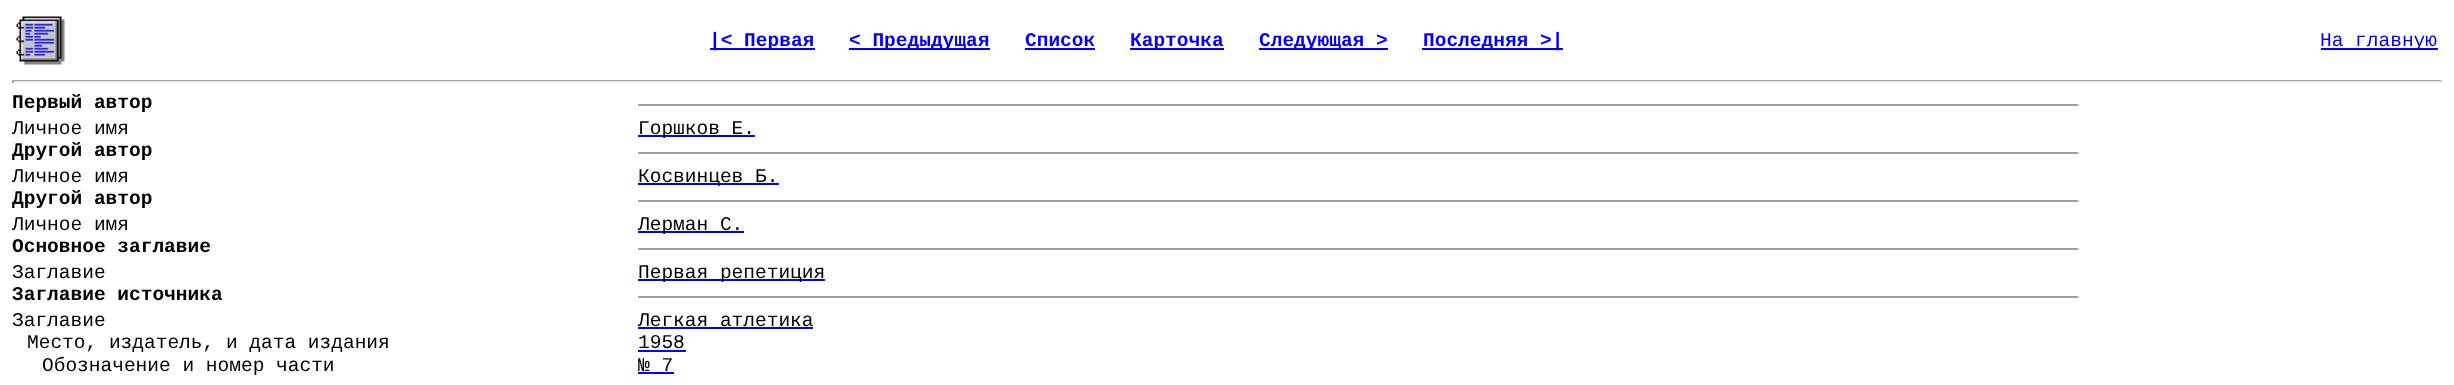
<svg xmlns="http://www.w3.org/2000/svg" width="2454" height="385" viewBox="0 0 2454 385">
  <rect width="100%" height="100%" fill="#fff"/>
  <image x="16" y="16" width="49" height="49" href="img/1.png"/>
  <path d="M710 48h105v2H710z" fill="#00f"/>
  <path d="M849 48h141v2H849z" fill="#00f"/>
  <path d="M1025 48h70v2H1025z" fill="#00f"/>
  <path d="M1130 48h94v2H1130z" fill="#00f"/>
  <path d="M1259 48h129v2H1259z" fill="#00f"/>
  <path d="M1422 48h141v2H1422z" fill="#00f"/>
  <path d="M2321 48h117v2H2321z" fill="#00f"/>
  <path d="M12 80h2430v1H12z" fill="#9f9f9f"/>
  <path d="M2441 80h2v3H2441z" fill="#eee"/>
  <path d="M12 81h2430v2H12z" fill="#eee"/>
  <path d="M12 80h2v3H12z" fill="#9f9f9f"/>
  <path d="M638 104h1441v2H638z" fill="#9f9f9f"/>
  <path d="M2078 104h2v2H2078z" fill="#eee"/>
  <path d="M638 135h117v2H638z" fill="#00f"/>
  <path d="M638 152h1441v2H638z" fill="#9f9f9f"/>
  <path d="M2078 152h2v2H2078z" fill="#eee"/>
  <path d="M638 183h141v2H638z" fill="#00f"/>
  <path d="M638 200h1441v2H638z" fill="#9f9f9f"/>
  <path d="M2078 200h2v2H2078z" fill="#eee"/>
  <path d="M638 231h106v2H638z" fill="#00f"/>
  <path d="M638 248h1441v2H638z" fill="#9f9f9f"/>
  <path d="M2078 248h2v2H2078z" fill="#eee"/>
  <path d="M638 279h187v2H638z" fill="#00f"/>
  <path d="M638 296h1441v2H638z" fill="#9f9f9f"/>
  <path d="M2078 296h2v2H2078z" fill="#eee"/>
  <path d="M638 327h175v2H638z" fill="#00f"/>
  <path d="M638 350h48v2H638z" fill="#00f"/>
  <path d="M638 372h36v2H638z" fill="#00f"/>
  <g font-family="Liberation Mono" font-size="19.5" font-weight="bold" fill="#00f">
    <text x="709" y="46">|&lt; Первая</text>
    <text x="849" y="46">&lt; Предыдущая</text>
    <text x="1025" y="46">Список</text>
    <text x="1130" y="46">Карточка</text>
    <text x="1259" y="46">Следующая &gt;</text>
    <text x="1423" y="46">Последняя &gt;|</text>
  </g>
  <text x="2320" y="46" font-family="Liberation Mono" font-size="19.5" fill="#00f">На главную</text>
  <text x="12" y="108" font-family="Liberation Mono" font-size="19.5" font-weight="bold" fill="#000">Первый автор</text>
  <g font-family="Liberation Mono" font-size="19.5" fill="#000">
    <text x="12" y="134">Личное имя</text>
    <text x="638" y="134">Горшков Е.</text>
  </g>
  <text x="12" y="156" font-family="Liberation Mono" font-size="19.5" font-weight="bold" fill="#000">Другой автор</text>
  <g font-family="Liberation Mono" font-size="19.5" fill="#000">
    <text x="12" y="182">Личное имя</text>
    <text x="638" y="182">Косвинцев Б.</text>
  </g>
  <text x="12" y="204" font-family="Liberation Mono" font-size="19.5" font-weight="bold" fill="#000">Другой автор</text>
  <g font-family="Liberation Mono" font-size="19.5" fill="#000">
    <text x="12" y="230">Личное имя</text>
    <text x="638" y="230">Лерман С.</text>
  </g>
  <text x="12" y="252" font-family="Liberation Mono" font-size="19.5" font-weight="bold" fill="#000">Основное заглавие</text>
  <g font-family="Liberation Mono" font-size="19.5" fill="#000">
    <text x="12" y="278">Заглавие</text>
    <text x="638" y="278">Первая репетиция</text>
  </g>
  <text x="12" y="300" font-family="Liberation Mono" font-size="19.5" font-weight="bold" fill="#000">Заглавие источника</text>
  <g font-family="Liberation Mono" font-size="19.5" fill="#000">
    <text x="12" y="326">Заглавие</text>
    <text x="638" y="326">Легкая атлетика</text>
    <text x="27" y="348">Место, издатель, и дата издания</text>
    <text x="638" y="348">1958</text>
    <text x="42" y="371">Обозначение и номер части</text>
    <text x="638" y="371">№ 7</text>
  </g>
</svg>
